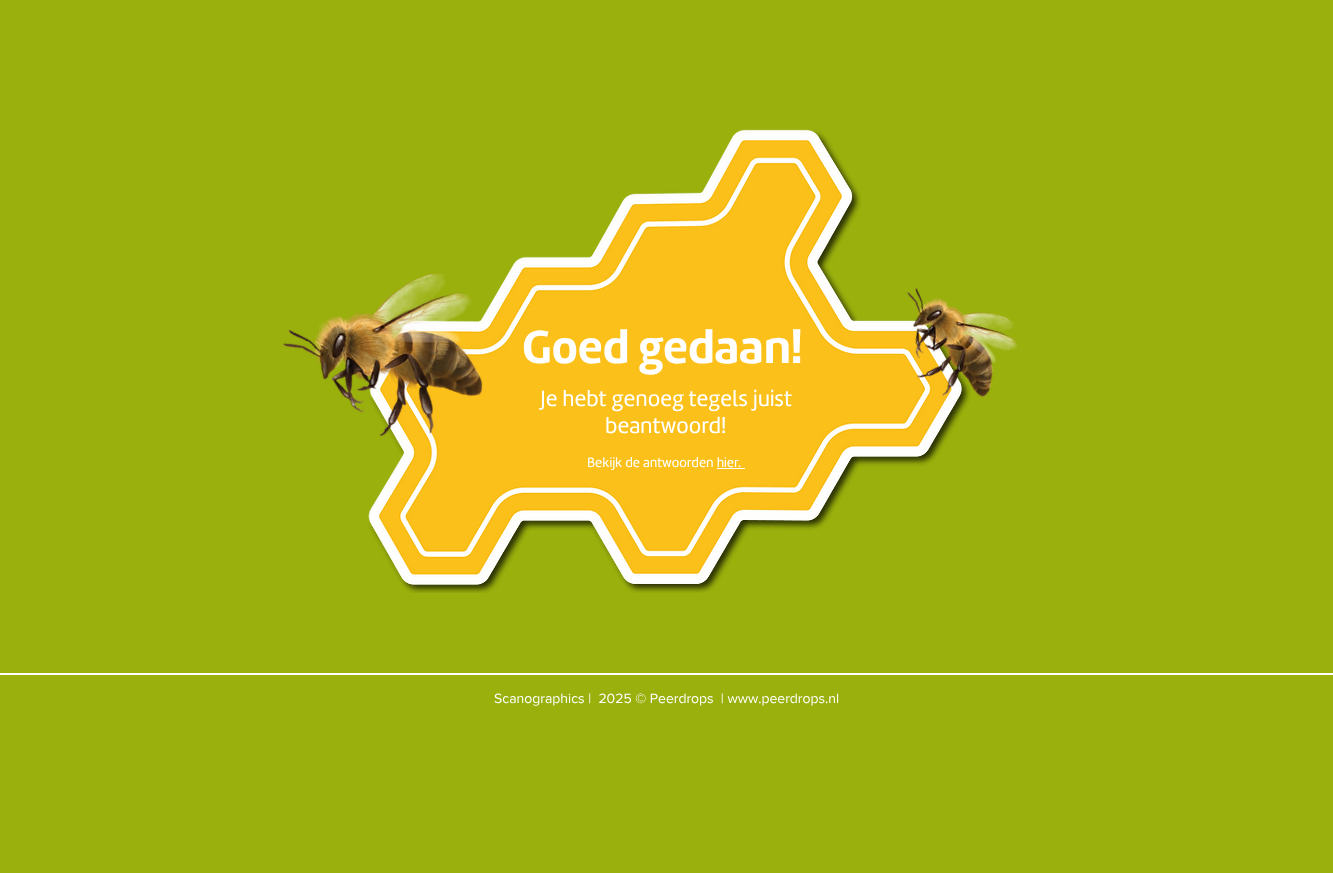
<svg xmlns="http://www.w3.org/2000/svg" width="1333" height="873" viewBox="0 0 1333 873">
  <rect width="100%" height="100%" fill="#9ab00c"/>
  <image x="368" y="129" width="603" height="464" href="img/1.png"/>
  <image x="283" y="273" width="200" height="164" href="img/2.png"/>
  <image x="907" y="287" width="111" height="110" href="img/3.png"/>
  <path d="M717 468h28v1H717z" fill="#fff"/>
  <path d="M0 673h1333v2H0z" fill="#fff"/>
  <text x="522" y="363" font-family="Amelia" font-size="48" font-weight="bold" fill="#fff">Goed gedaan!</text>
  <g font-family="Amelia" font-size="23" fill="#fff">
    <text x="540" y="406">Je hebt genoeg tegels juist</text>
    <text x="605" y="433">beantwoord!</text>
  </g>
  <text x="587" y="467" font-family="Amelia" font-size="14" fill="#fff">Bekijk de antwoorden hier.</text>
  <text x="494" y="703" font-family="'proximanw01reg'" font-size="14" fill="#fff" xml:space="preserve">Scanographics |  2025 © Peerdrops  | www.peerdrops.nl</text>
</svg>
